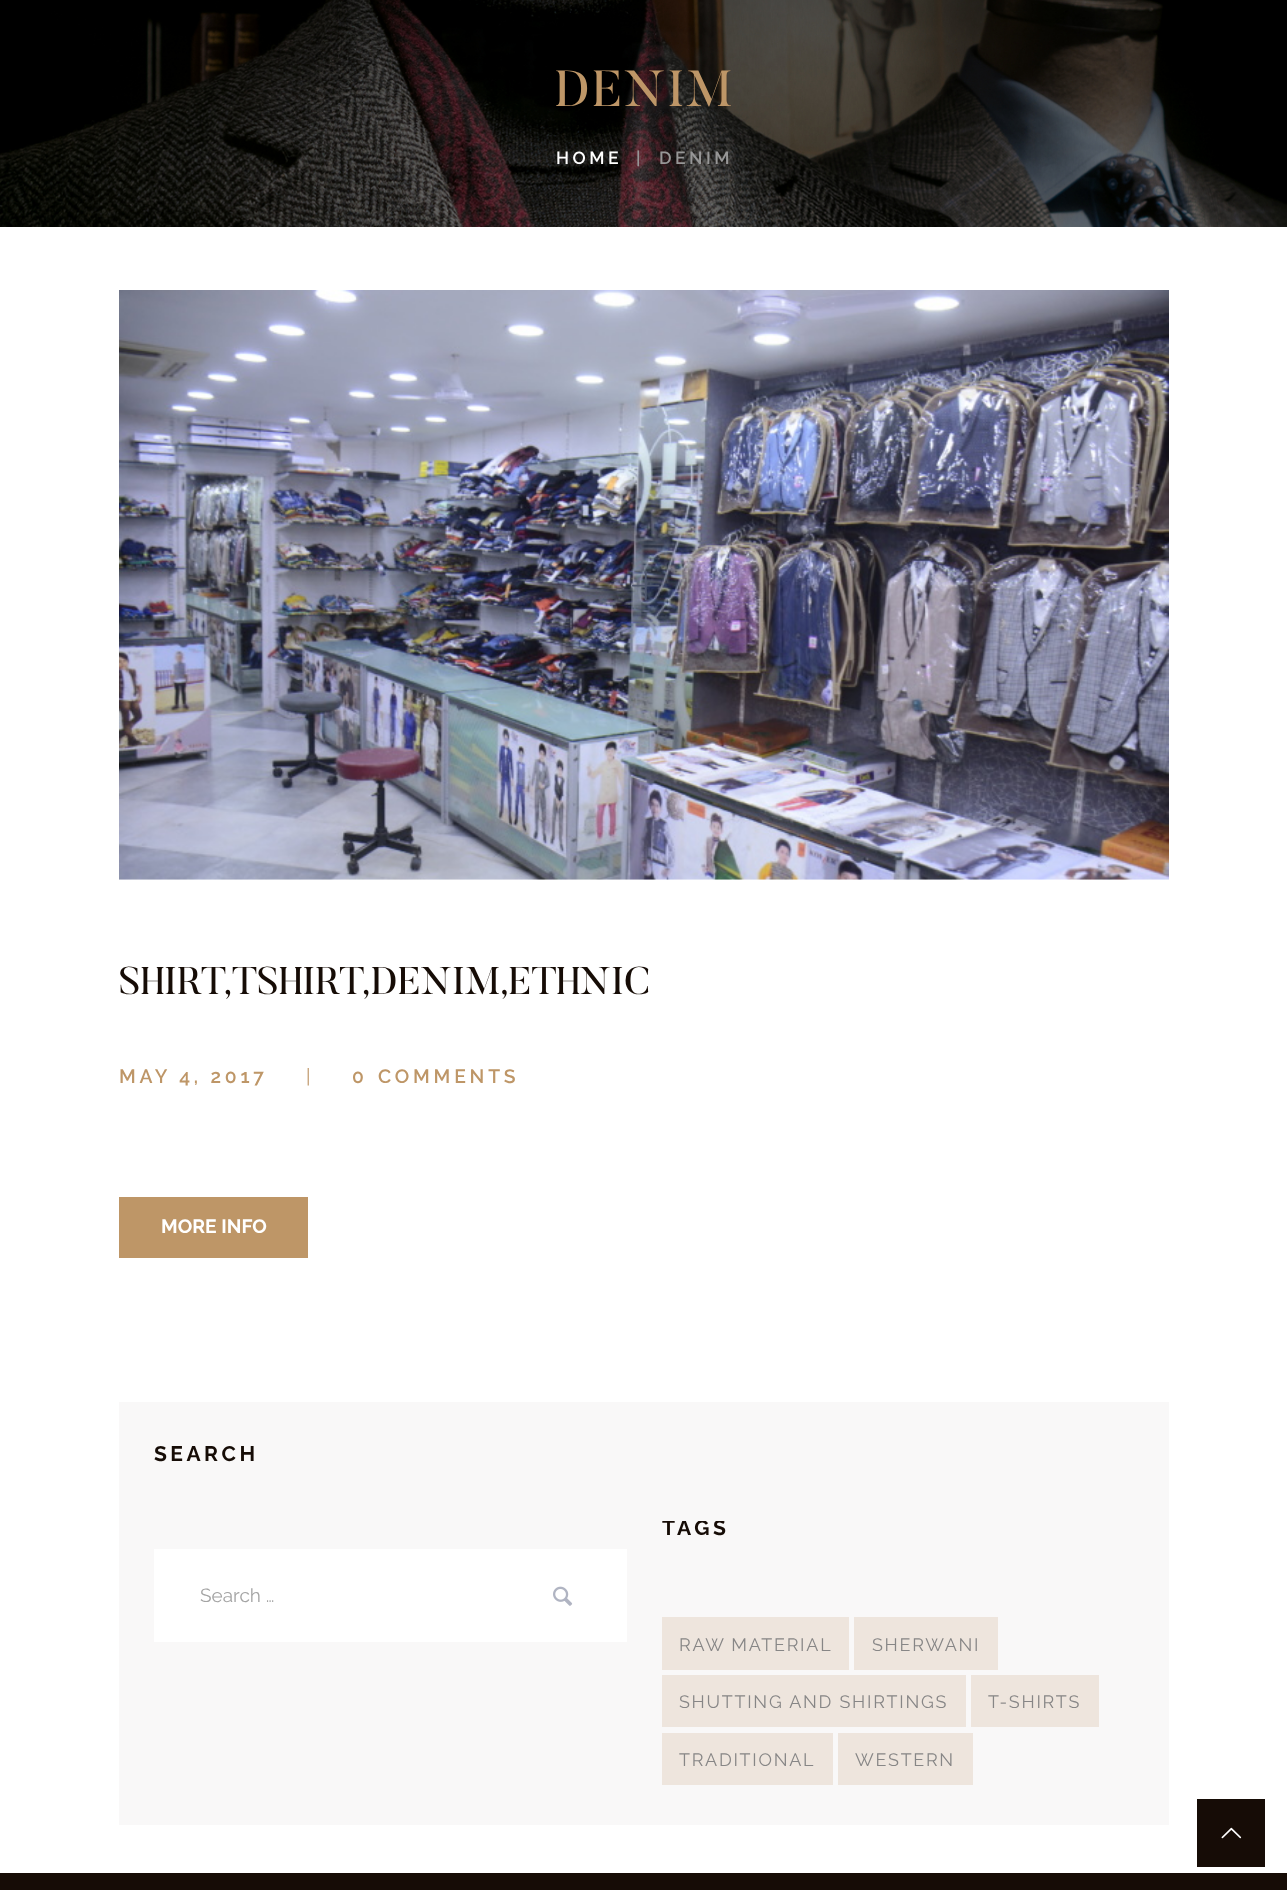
<svg xmlns="http://www.w3.org/2000/svg" width="1287" height="1890" viewBox="0 0 1287 1890">
  <defs>
    <clipPath id="clip1"><path d="M644 1521h508v269H644z"/></clipPath>
  </defs>
  <rect width="100%" height="100%" fill="#fff"/>
  <image x="0" y="0" width="1287" height="227" href="img/1.png"/>
  <image x="119" y="290" width="1050" height="590" href="img/2.png"/>
  <path d="M119 1197h189v61H119z" fill="#be9667"/>
  <path d="M119 1402h1050v423H119z" fill="#f9f8f8"/>
  <path d="M154 1549h473v93H154z" fill="#fff"/>
  <image x="553" y="1586" width="20" height="20" href="img/3.png"/>
  <path d="M662 1617h187v53H662z" fill="#eee5dd"/>
  <path d="M854 1617h144v53H854z" fill="#eee5dd"/>
  <path d="M662 1675h304v52H662z" fill="#eee5dd"/>
  <path d="M971 1675h128v52H971z" fill="#eee5dd"/>
  <path d="M662 1733h171v52H662z" fill="#eee5dd"/>
  <path d="M838 1733h135v52H838z" fill="#eee5dd"/>
  <path d="M0 1873h1287v17H0z" fill="#160c06"/>
  <path d="M1197 1799h68v68H1197z" fill="#160c06"/>
  <image x="1221" y="1827" width="21" height="12" href="img/4.png"/>
  <text x="554" y="106" font-family="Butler" font-size="50.5" letter-spacing="2" fill="#be9667">DENIM</text>
  <text x="556" y="164" font-family="Raleway" font-size="17.5" font-weight="600" letter-spacing="3.5" fill="#fff">HOME</text>
  <g font-family="Raleway" font-size="17.5" font-weight="600" letter-spacing="3.5" fill="#979797">
    <text x="636" y="164">|</text>
    <text x="659" y="164">DENIM</text>
  </g>
  <text x="627" y="618" font-family="Raleway" font-size="91" font-weight="100" letter-spacing="1" fill="#50586d">+</text>
  <text x="119" y="994" font-family="Butler" font-size="38.5" fill="#160c06">SHIRT,TSHIRT,DENIM,ETHNIC</text>
  <text x="119" y="1083" font-family="Raleway" font-size="19.25" font-weight="600" letter-spacing="3.8" fill="#be9667">MAY 4, 2017</text>
  <text x="306" y="1083" font-family="Raleway" font-size="19.25" letter-spacing="3.8" fill="#be9667">|</text>
  <g font-family="Raleway" font-size="19.25" font-weight="600" letter-spacing="3.8" fill="#be9667">
    <text x="352" y="1083">0</text>
    <text x="378" y="1083">COMMENTS</text>
  </g>
  <text x="161" y="1233" font-family="Raleway" font-size="19.25" font-weight="bold" fill="#fff">MORE INFO</text>
  <text x="154" y="1461" font-family="Raleway" font-size="21" font-weight="bold" letter-spacing="3.5" fill="#160c06">SEARCH</text>
  <text x="200" y="1602" font-family="Raleway" font-size="19" fill="#a4a4a4">Search …</text>
  <g clip-path="url(#clip1)">
    <text x="662" y="1535" font-family="Raleway" font-size="21" font-weight="bold" letter-spacing="3.5" fill="#160c06">TAGS</text>
  </g>
  <g font-family="Raleway" font-size="17.9" letter-spacing="1.75" fill="#878686">
    <text x="679" y="1651">RAW MATERIAL</text>
    <text x="872" y="1651">SHERWANI</text>
    <text x="679" y="1708">SHUTTING AND SHIRTINGS</text>
    <text x="988" y="1708">T-SHIRTS</text>
    <text x="679" y="1766">TRADITIONAL</text>
    <text x="855" y="1766">WESTERN</text>
  </g>
</svg>
